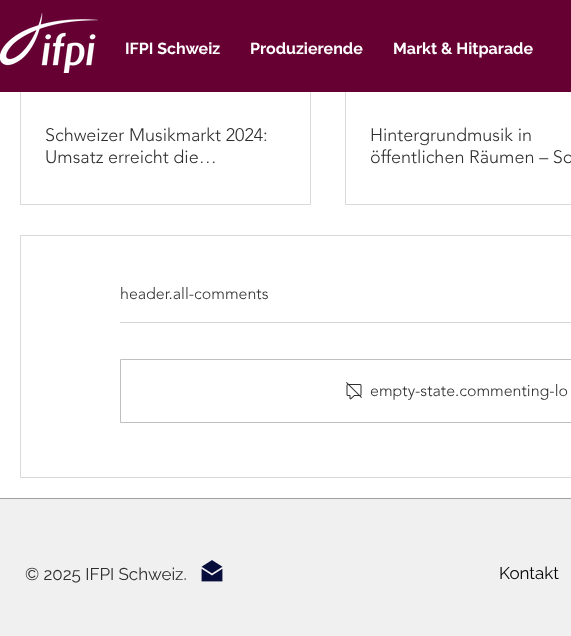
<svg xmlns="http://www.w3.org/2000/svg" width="571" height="636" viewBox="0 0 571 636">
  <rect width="100%" height="100%" fill="#fff"/>
  <path d="M20.5 -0.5h290v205H20.5z" fill="none" stroke="#d9d9d9"/>
  <path d="M345.5 -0.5h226v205H345.5z" fill="none" stroke="#d9d9d9"/>
  <path d="M0 0h571v92H0z" fill="#603"/>
  <image x="0" y="13" width="98" height="60" href="img/1.png"/>
  <path d="M20.5 235.5h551v242H20.5z" fill="none" stroke="#d9d9d9"/>
  <path d="M120 322h451v1H120z" fill="#d5d5d5"/>
  <path d="M120.5 359.5h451v63H120.5z" fill="none" stroke="#c1c0c0"/>
  <image x="346" y="382" width="16" height="18" href="img/2.png"/>
  <path d="M0 499h571v137H0z" fill="#f0f0f0"/>
  <path d="M0 498h571v1H0z" fill="#a0a09f"/>
  <image x="201" y="560" width="22" height="22" href="img/3.png"/>
  <g font-family="Raleway" font-size="16" font-weight="bold" fill="#fff">
    <text x="125" y="54">IFPI Schweiz</text>
    <text x="250" y="54">Produzierende</text>
    <text x="393" y="54">Markt &amp; Hitparade</text>
  </g>
  <g font-family="'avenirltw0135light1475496'" font-size="18" font-weight="300" fill="#2f2e2e">
    <text x="45" y="141">Schweizer Musikmarkt 2024:</text>
    <text x="45" y="163">Umsatz erreicht die…</text>
    <text x="370" y="141">Hintergrundmusik in</text>
    <text x="370" y="163">öffentlichen Räumen – So</text>
  </g>
  <g font-family="'avenirltw0135light1475496'" font-size="16" font-weight="300" fill="#2f2e2e">
    <text x="120" y="299">header.all-comments</text>
    <text x="370" y="396">empty-state.commenting-lo</text>
  </g>
  <text x="25" y="580" font-family="Raleway" font-size="17" fill="#2f2e2e">© 2025 IFPI Schweiz.</text>
  <text x="499" y="579" font-family="Raleway" font-size="17" fill="#000">Kontakt</text>
</svg>
